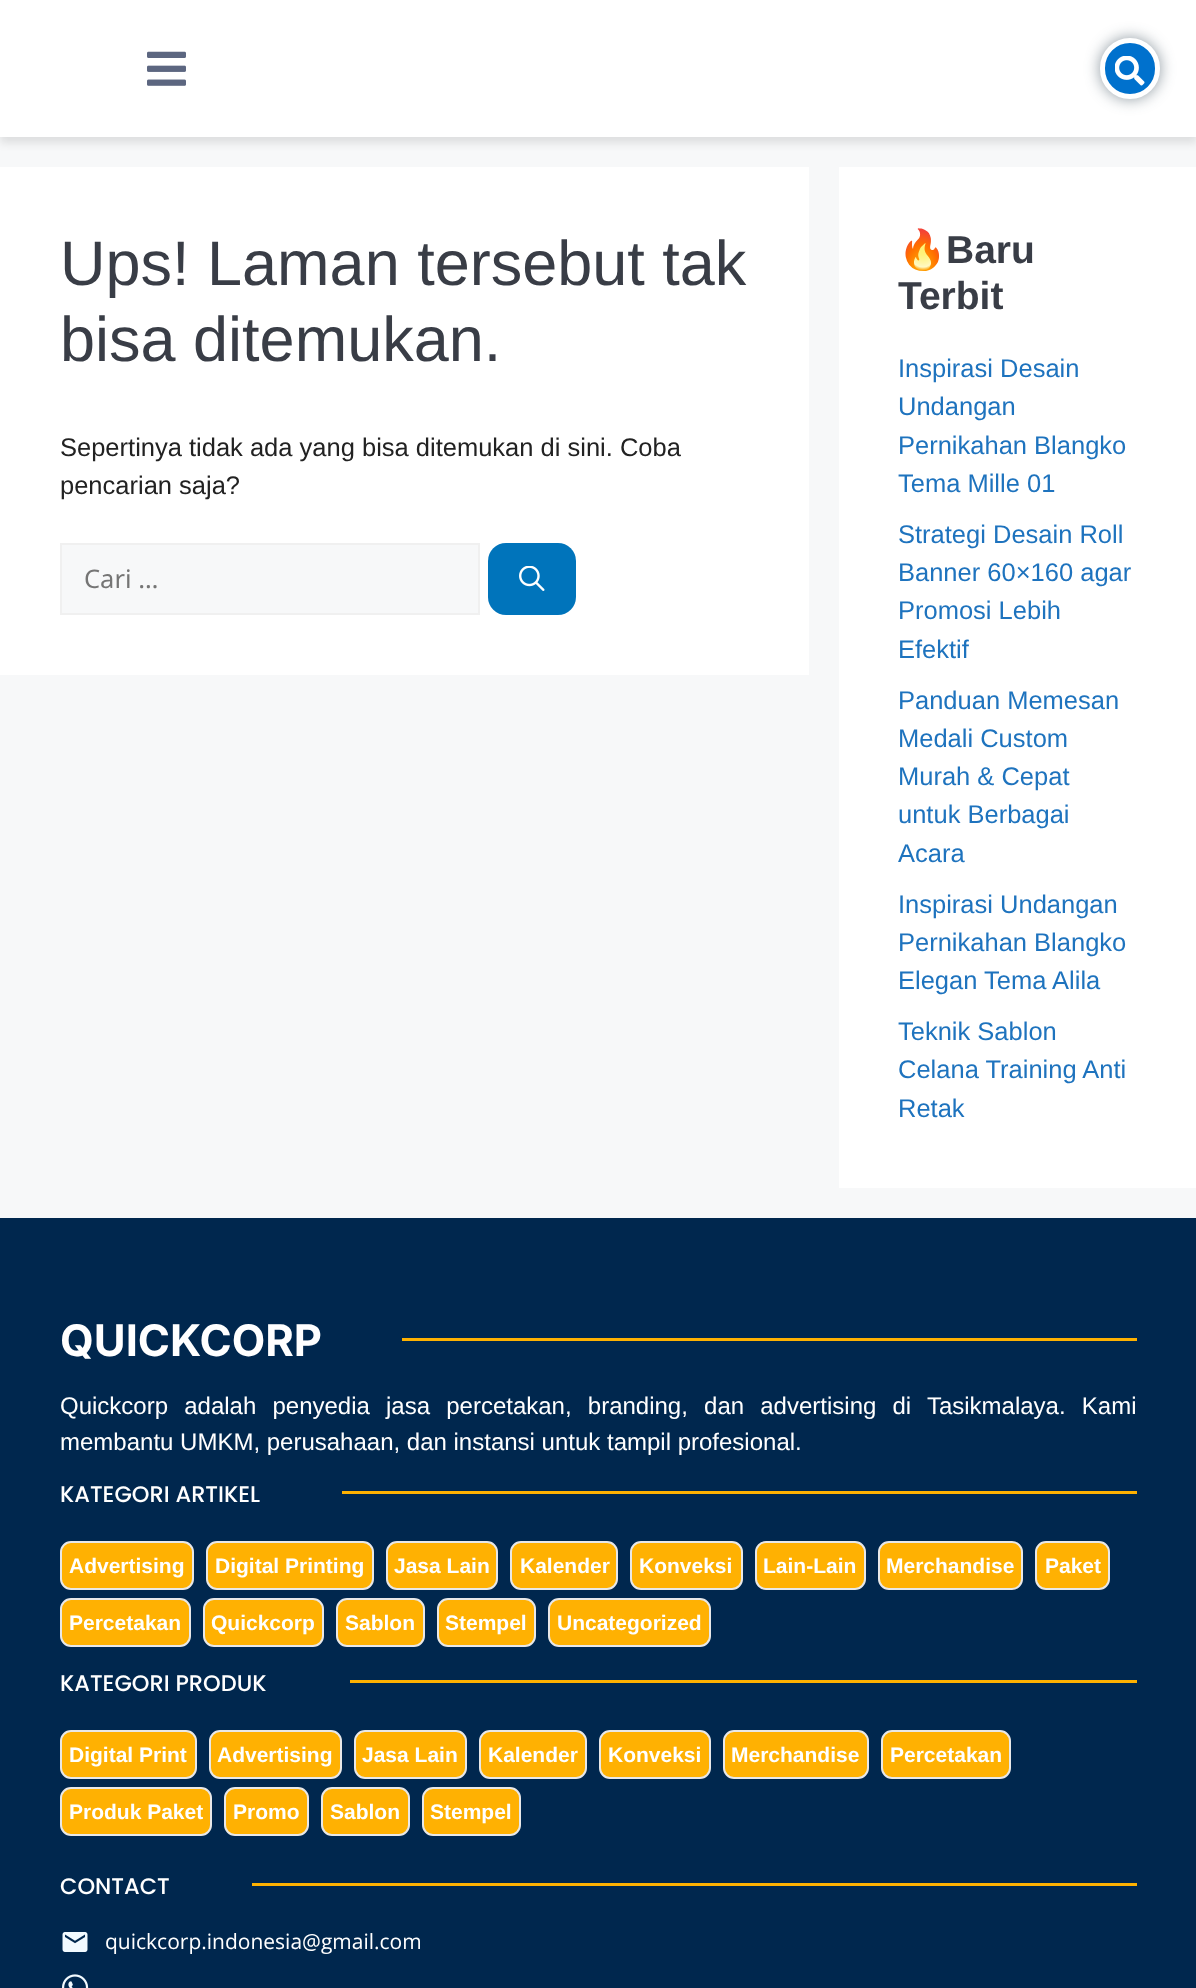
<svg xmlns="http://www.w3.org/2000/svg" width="1196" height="1988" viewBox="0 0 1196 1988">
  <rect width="100%" height="100%" fill="#f7f8f9"/>
  <path d="M0 6h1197v137H0z" fill="#0000001a" filter="blur(4.5px)"/>
  <path d="M0 0h1196v137H0z" fill="#fff"/>
  <image x="147" y="51" width="39" height="35" href="img/1.png"/>
  <rect x="1100" y="38" width="60" height="61" rx="30" fill="#1b314280" filter="blur(7.5px)"/>
  <rect x="1102.5" y="40.5" width="55" height="56" rx="27.5" fill="#0071cd" stroke="#fff" stroke-width="5"/>
  <image x="1115" y="56" width="30" height="30" href="img/2.png"/>
  <path d="M0 167h809v508H0z" fill="#fff"/>
  <path d="M61 544h418v70H61z" fill="#f7f8f9" stroke="#f0f0f0" stroke-width="2"/>
  <rect x="488" y="543" width="88" height="72" rx="18" fill="#0074bb"/>
  <image x="519" y="566" width="26" height="25" href="img/3.png"/>
  <path d="M839 167h357v1021H839z" fill="#fff"/>
  <path d="M0 1218h1196v770H0z" fill="#00274e"/>
  <path d="M402 1338h735v3H402z" fill="#feb101"/>
  <path d="M342 1491h795v3H342z" fill="#feb101"/>
  <rect x="61" y="1542" width="132" height="47" rx="10" fill="#ffb102" stroke="#e8e8e8" stroke-width="2"/>
  <rect x="207" y="1542" width="166" height="47" rx="10" fill="#ffb102" stroke="#e8e8e8" stroke-width="2"/>
  <rect x="387" y="1542" width="110" height="47" rx="10" fill="#ffb102" stroke="#e8e8e8" stroke-width="2"/>
  <rect x="511" y="1542" width="106" height="47" rx="10" fill="#ffb102" stroke="#e8e8e8" stroke-width="2"/>
  <rect x="631" y="1542" width="111" height="47" rx="10" fill="#ffb102" stroke="#e8e8e8" stroke-width="2"/>
  <rect x="756" y="1542" width="109" height="47" rx="10" fill="#ffb102" stroke="#e8e8e8" stroke-width="2"/>
  <rect x="879" y="1542" width="143" height="47" rx="10" fill="#ffb102" stroke="#e8e8e8" stroke-width="2"/>
  <rect x="1036" y="1542" width="73" height="47" rx="10" fill="#ffb102" stroke="#e8e8e8" stroke-width="2"/>
  <rect x="61" y="1599" width="129" height="47" rx="10" fill="#ffb102" stroke="#e8e8e8" stroke-width="2"/>
  <rect x="204" y="1599" width="119" height="47" rx="10" fill="#ffb102" stroke="#e8e8e8" stroke-width="2"/>
  <rect x="337" y="1599" width="87" height="47" rx="10" fill="#ffb102" stroke="#e8e8e8" stroke-width="2"/>
  <rect x="438" y="1599" width="97" height="47" rx="10" fill="#ffb102" stroke="#e8e8e8" stroke-width="2"/>
  <rect x="549" y="1599" width="161" height="47" rx="10" fill="#ffb102" stroke="#e8e8e8" stroke-width="2"/>
  <path d="M350 1680h787v3H350z" fill="#feb101"/>
  <rect x="61" y="1731" width="135" height="47" rx="10" fill="#ffb102" stroke="#e8e8e8" stroke-width="2"/>
  <rect x="210" y="1731" width="131" height="47" rx="10" fill="#ffb102" stroke="#e8e8e8" stroke-width="2"/>
  <rect x="355" y="1731" width="111" height="47" rx="10" fill="#ffb102" stroke="#e8e8e8" stroke-width="2"/>
  <rect x="480" y="1731" width="106" height="47" rx="10" fill="#ffb102" stroke="#e8e8e8" stroke-width="2"/>
  <rect x="600" y="1731" width="110" height="47" rx="10" fill="#ffb102" stroke="#e8e8e8" stroke-width="2"/>
  <rect x="724" y="1731" width="144" height="47" rx="10" fill="#ffb102" stroke="#e8e8e8" stroke-width="2"/>
  <rect x="882" y="1731" width="128" height="47" rx="10" fill="#ffb102" stroke="#e8e8e8" stroke-width="2"/>
  <rect x="61" y="1788" width="150" height="47" rx="10" fill="#ffb102" stroke="#e8e8e8" stroke-width="2"/>
  <rect x="225" y="1788" width="83" height="47" rx="10" fill="#ffb102" stroke="#e8e8e8" stroke-width="2"/>
  <rect x="322" y="1788" width="87" height="47" rx="10" fill="#ffb102" stroke="#e8e8e8" stroke-width="2"/>
  <rect x="423" y="1788" width="97" height="47" rx="10" fill="#ffb102" stroke="#e8e8e8" stroke-width="2"/>
  <path d="M252 1883h885v3H252z" fill="#feb101"/>
  <image x="62" y="1932" width="26" height="20" href="img/4.png"/>
  <image x="62" y="1974" width="27" height="14" href="img/5.png"/>
  <g font-family="Liberation Sans" font-size="63" fill="#393d46">
    <text x="60" y="285">Ups! Laman tersebut tak</text>
    <text x="60" y="361">bisa ditemukan.</text>
  </g>
  <g font-family="Liberation Sans" font-size="25.5" fill="#222">
    <text x="60" y="456">Sepertinya tidak ada yang bisa ditemukan di sini. Coba</text>
    <text x="60" y="494">pencarian saja?</text>
  </g>
  <text x="84" y="588" font-family="Noto Sans" font-size="25.5" fill="#757575">Cari …</text>
  <text x="898" y="263" font-family="Noto Color Emoji" font-size="39" font-weight="bold" fill="#393d46">🔥</text>
  <g font-family="Liberation Sans" font-size="39" font-weight="bold" fill="#393d46">
    <text x="946" y="263">Baru</text>
    <text x="898" y="309">Terbit</text>
  </g>
  <g font-family="Liberation Sans" font-size="25.5" fill="#1e73be">
    <text x="898" y="377">Inspirasi Desain</text>
    <text x="898" y="415">Undangan</text>
    <text x="898" y="454">Pernikahan Blangko</text>
    <text x="898" y="492">Tema Mille 01</text>
    <text x="898" y="543">Strategi Desain Roll</text>
    <text x="898" y="581">Banner 60×160 agar</text>
    <text x="898" y="619">Promosi Lebih</text>
    <text x="898" y="658">Efektif</text>
    <text x="898" y="709">Panduan Memesan</text>
    <text x="898" y="747">Medali Custom</text>
    <text x="898" y="785">Murah &amp; Cepat</text>
    <text x="898" y="823">untuk Berbagai</text>
    <text x="898" y="862">Acara</text>
    <text x="898" y="913">Inspirasi Undangan</text>
    <text x="898" y="951">Pernikahan Blangko</text>
    <text x="898" y="989">Elegan Tema Alila</text>
    <text x="898" y="1040">Teknik Sablon</text>
    <text x="898" y="1078">Celana Training Anti</text>
    <text x="898" y="1117">Retak</text>
  </g>
  <text x="60" y="1356" font-family="Inter" font-size="43.5" font-weight="bold" fill="#fff">QUICKCORP</text>
  <g font-family="Liberation Sans" font-size="24" fill="#fff">
    <text x="60" y="1414" word-spacing="9.5">Quickcorp adalah penyedia jasa percetakan, branding, dan advertising di Tasikmalaya. Kami</text>
    <text x="60" y="1450">membantu UMKM, perusahaan, dan instansi untuk tampil profesional.</text>
  </g>
  <text x="60" y="1502" font-family="Poppins" font-size="22.5" font-weight="500" fill="#fff">KATEGORI ARTIKEL</text>
  <g font-family="Liberation Sans" font-size="21" font-weight="bold" fill="#fff">
    <text x="69" y="1573">Advertising</text>
    <text x="215" y="1573">Digital Printing</text>
    <text x="394" y="1573">Jasa Lain</text>
    <text x="520" y="1573">Kalender</text>
    <text x="639" y="1573">Konveksi</text>
    <text x="763" y="1573">Lain-Lain</text>
    <text x="886" y="1573">Merchandise</text>
    <text x="1045" y="1573">Paket</text>
    <text x="69" y="1630">Percetakan</text>
    <text x="211" y="1630">Quickcorp</text>
    <text x="345" y="1630">Sablon</text>
    <text x="445" y="1630">Stempel</text>
    <text x="557" y="1630">Uncategorized</text>
  </g>
  <text x="60" y="1691" font-family="Poppins" font-size="22.5" font-weight="500" fill="#fff">KATEGORI PRODUK</text>
  <g font-family="Liberation Sans" font-size="21" font-weight="bold" fill="#fff">
    <text x="69" y="1762">Digital Print</text>
    <text x="217" y="1762">Advertising</text>
    <text x="362" y="1762">Jasa Lain</text>
    <text x="488" y="1762">Kalender</text>
    <text x="608" y="1762">Konveksi</text>
    <text x="731" y="1762">Merchandise</text>
    <text x="890" y="1762">Percetakan</text>
    <text x="69" y="1819">Produk Paket</text>
    <text x="233" y="1819">Promo</text>
    <text x="330" y="1819">Sablon</text>
    <text x="430" y="1819">Stempel</text>
  </g>
  <text x="60" y="1894" font-family="Poppins" font-size="22.5" font-weight="500" fill="#fff">CONTACT</text>
  <text x="105" y="1949" font-family="Open Sans" font-size="21" fill="#fff">quickcorp.indonesia@gmail.com</text>
</svg>
